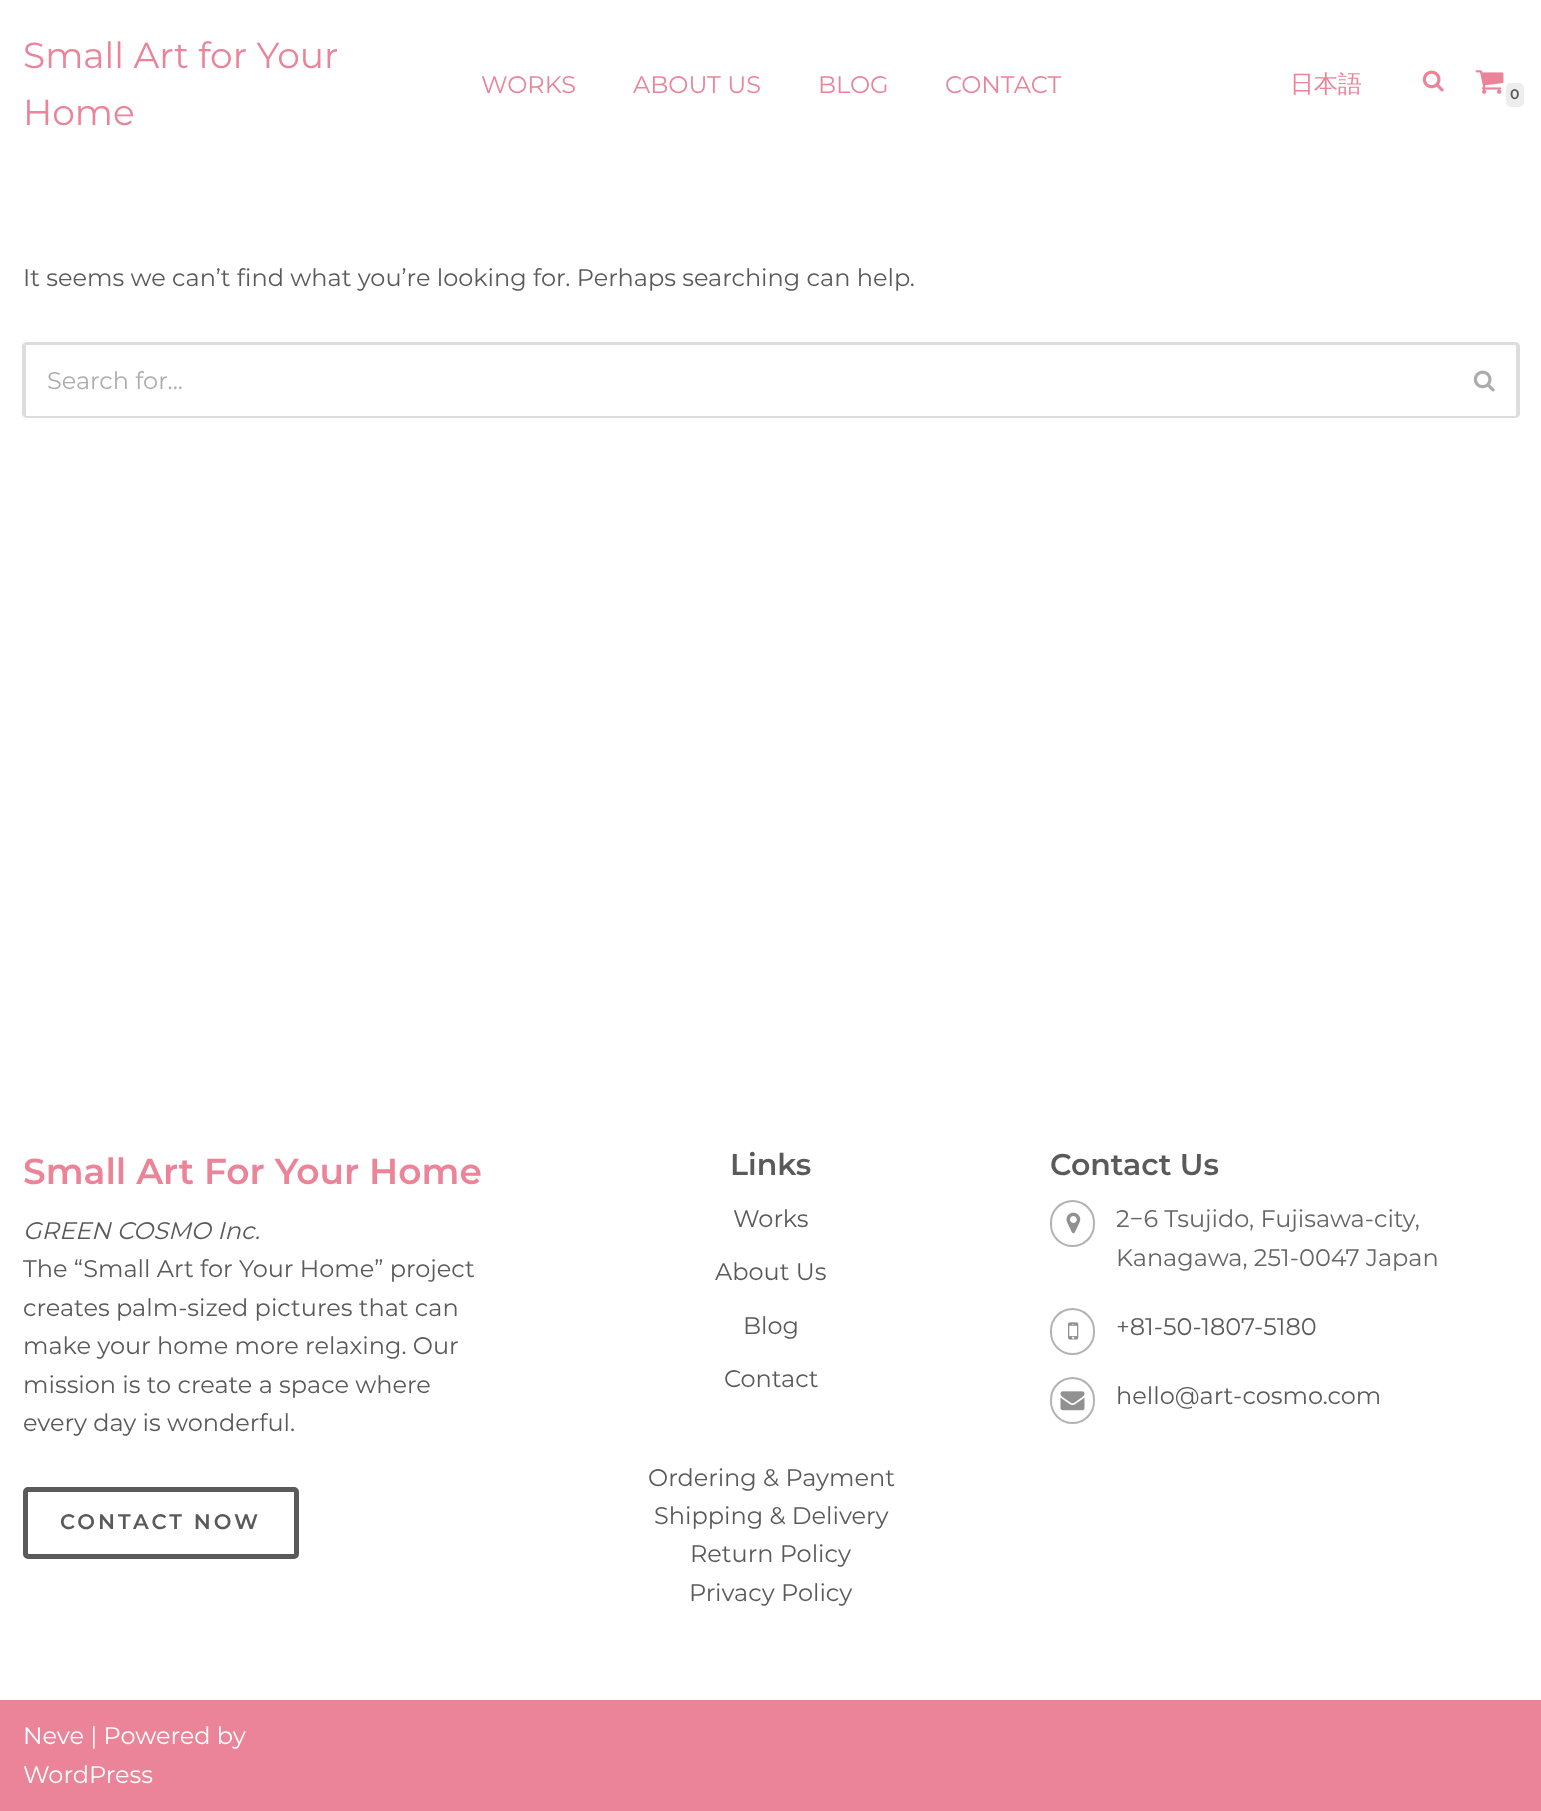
<svg xmlns="http://www.w3.org/2000/svg" width="1541" height="1811" viewBox="0 0 1541 1811">
  <rect width="100%" height="100%" fill="#fff"/>
  <image x="1422" y="70" width="22" height="22" href="img/1.png"/>
  <image x="1475" y="70" width="29" height="24" href="img/2.png"/>
  <rect x="1506" y="83" width="18" height="24" rx="5" fill="#ededed"/>
  <path d="M27 342H1452V418H27C25 418 22 416 22 414V346C22 344 25 342 27 342ZM27 345H1452V416H27C26 416 26 415 26 414V346C26 346 26 345 27 345Z" fill="#ddd" fill-rule="evenodd"/>
  <path d="M1452 342H1515C1517 342 1520 344 1520 346V414C1520 416 1517 418 1515 418H1452ZM1452 345H1515C1516 345 1516 346 1516 346V414C1516 415 1516 416 1515 416H1452Z" fill="#ddd" fill-rule="evenodd"/>
  <image x="1473" y="370" width="22" height="22" href="img/3.png"/>
  <rect x="25.5" y="1489.5" width="271" height="67" rx="2.5" fill="none" stroke="#5a5a5a" stroke-width="5"/>
  <rect x="1051" y="1201" width="43" height="45" rx="21.5" fill="none" stroke="#b3b3b3" stroke-width="2"/>
  <image x="1066" y="1212" width="15" height="22" href="img/4.png"/>
  <rect x="1051" y="1309" width="43" height="45" rx="21.5" fill="none" stroke="#b3b3b3" stroke-width="2"/>
  <image x="1068" y="1322" width="11" height="18" href="img/5.png"/>
  <rect x="1051" y="1378" width="43" height="45" rx="21.5" fill="none" stroke="#b3b3b3" stroke-width="2"/>
  <image x="1060" y="1391" width="25" height="20" href="img/6.png"/>
  <path d="M0 1700h1541v111H0z" fill="#eb8498"/>
  <g font-family="Montserrat" font-size="36" fill="#eb8498">
    <text x="23" y="68">Small Art for Your</text>
    <text x="23" y="125">Home</text>
  </g>
  <g font-family="Montserrat" font-size="24" fill="#eb8498">
    <text x="481" y="93">WORKS</text>
    <text x="633" y="93">ABOUT US</text>
    <text x="818" y="93">BLOG</text>
    <text x="945" y="93">CONTACT</text>
  </g>
  <text x="1290" y="92" font-family="WenQuanYi Zen Hei" font-size="24" font-weight="500" fill="#eb8498">日本語</text>
  <text x="1510" y="99" font-family="Montserrat" font-size="14" font-weight="600" fill="#5a5a5a">0</text>
  <text x="23" y="286" font-family="Montserrat" font-size="24" fill="#5a5a5a">It seems we can’t find what you’re looking for. Perhaps searching can help.</text>
  <text x="47" y="389" font-family="Montserrat" font-size="24" fill="#adadad">Search for...</text>
  <text x="23" y="1184" font-family="Montserrat" font-size="36" font-weight="600" fill="#eb8498">Small Art For Your Home</text>
  <text x="23" y="1239" font-family="Montserrat" font-size="24" font-style="italic" fill="#5a5a5a">GREEN COSMO Inc.</text>
  <g font-family="Montserrat" font-size="24" fill="#5a5a5a">
    <text x="23" y="1277">The “Small Art for Your Home” project</text>
    <text x="23" y="1316">creates palm-sized pictures that can</text>
    <text x="23" y="1354">make your home more relaxing. Our</text>
    <text x="23" y="1393">mission is to create a space where</text>
    <text x="23" y="1431">every day is wonderful.</text>
  </g>
  <text x="60" y="1529" font-family="Montserrat" font-size="21" font-weight="600" letter-spacing="3" fill="#5a5a5a">CONTACT NOW</text>
  <text x="730" y="1175" font-family="Montserrat" font-size="30" font-weight="600" fill="#5a5a5a">Links</text>
  <g font-family="Montserrat" font-size="24" fill="#5a5a5a">
    <text x="733" y="1227">Works</text>
    <text x="715" y="1280">About Us</text>
    <text x="743" y="1334">Blog</text>
    <text x="724" y="1387">Contact</text>
    <text x="648" y="1486">Ordering &amp; Payment</text>
    <text x="654" y="1524">Shipping &amp; Delivery</text>
    <text x="690" y="1562">Return Policy</text>
    <text x="689" y="1601">Privacy Policy</text>
  </g>
  <text x="1050" y="1175" font-family="Montserrat" font-size="30" font-weight="600" fill="#5a5a5a">Contact Us</text>
  <g font-family="Montserrat" font-size="24" fill="#666">
    <text x="1116" y="1227">2−6 Tsujido, Fujisawa-city,</text>
    <text x="1116" y="1266">Kanagawa, 251-0047 Japan</text>
  </g>
  <g font-family="Montserrat" font-size="24" fill="#5a5a5a">
    <text x="1116" y="1335">+81-50-1807-5180</text>
    <text x="1116" y="1404">hello@art-cosmo.com</text>
  </g>
  <g font-family="Montserrat" font-size="24" fill="#fff">
    <text x="23" y="1744">Neve | Powered by</text>
    <text x="23" y="1783">WordPress</text>
  </g>
</svg>
